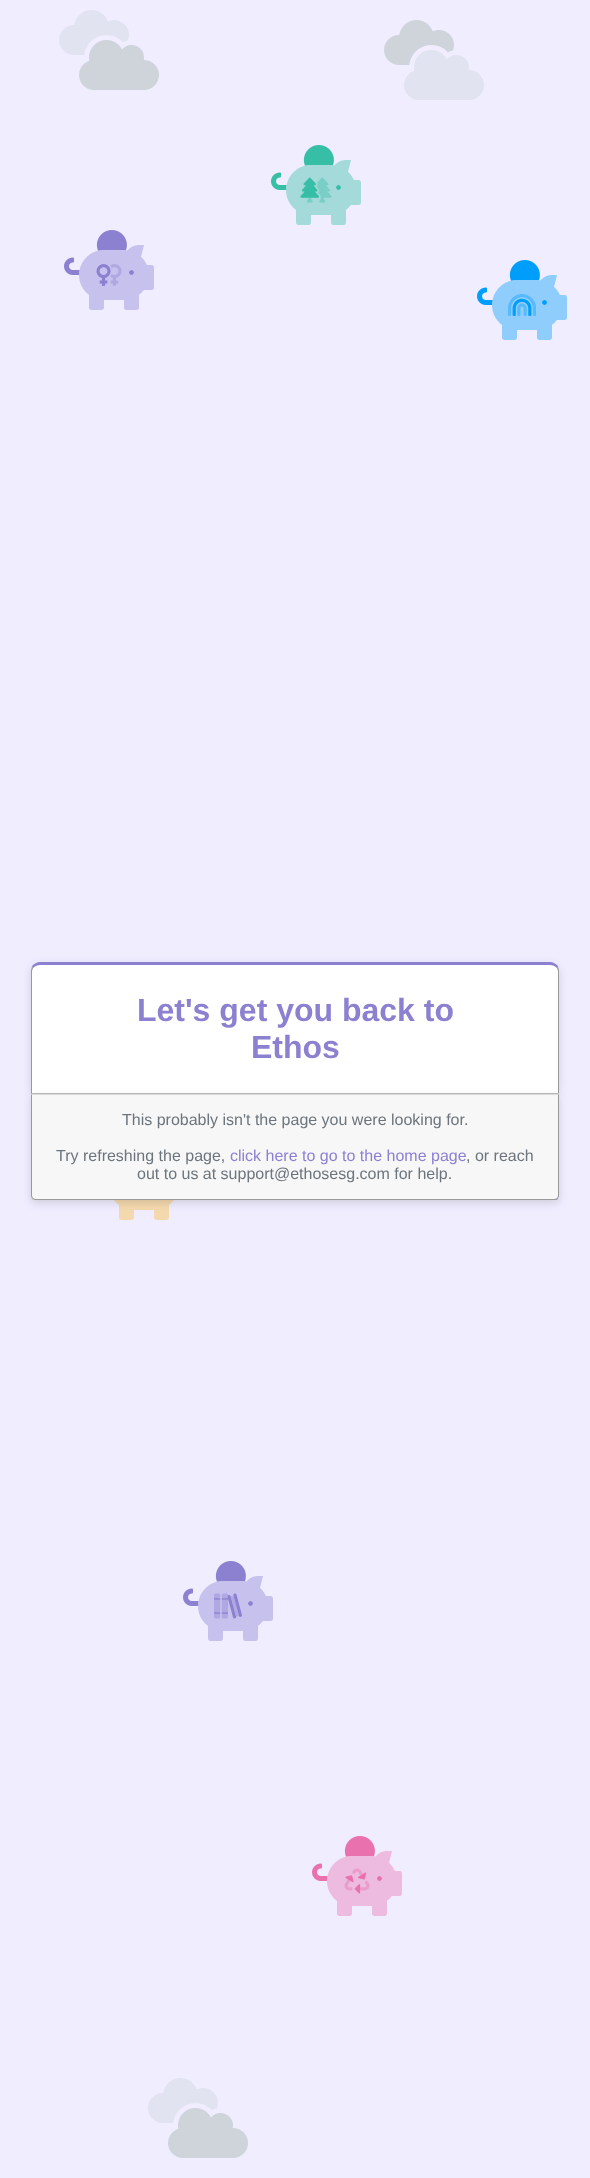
<svg xmlns="http://www.w3.org/2000/svg" width="590" height="2178" viewBox="0 0 590 2178">
  <rect width="100%" height="100%" fill="#efedff"/>
  <image x="59" y="10" width="100" height="80" href="img/1.png"/>
  <image x="384" y="20" width="100" height="80" href="img/2.png"/>
  <image x="271" y="145" width="90" height="80" href="img/3.png"/>
  <image x="300" y="177" width="32" height="26" href="img/4.png"/>
  <image x="64" y="230" width="90" height="80" href="img/5.png"/>
  <image x="96" y="264" width="26" height="22" href="img/6.png"/>
  <image x="477" y="260" width="90" height="80" href="img/7.png"/>
  <image x="508" y="294" width="28" height="22" href="img/8.png"/>
  <rect x="31" y="965" width="528" height="132" rx="9" fill="#3232322b" filter="blur(4px)"/>
  <path d="M40 965H550C554 965 558 968 558 971V1093H32V971C32 968 36 965 40 965Z" fill="#fff"/>
  <path d="M40 962C37 962 34 964 32 966L33 968C35 966 37 965 40 965H550C553 965 555 966 557 968L558 966C556 964 553 962 550 962Z" fill="#8c81d1"/>
  <path d="M559 1094V971C559 969 558 968 558 966L557 968L558 971V1093Z" fill="#999"/>
  <path d="M559 1094L558 1093H32L31 1094Z" fill="#bbb"/>
  <path d="M31 1094L32 1093V971L33 968L32 966C32 968 31 969 31 971Z" fill="#999"/>
  <image x="114" y="1200" width="60" height="20" href="img/9.png"/>
  <rect x="31" y="1097" width="528" height="106" rx="4" fill="#3232322b" filter="blur(4px)"/>
  <path d="M31 1094H559V1196C559 1198 557 1200 555 1200H35C33 1200 31 1198 31 1196Z" fill="#f7f7f7"/>
  <path d="M31 1094L32 1095H558L559 1094Z" fill="#dadada"/>
  <path d="M559 1094L558 1095V1196L557 1198L558 1199L559 1196Z" fill="#999"/>
  <path d="M35 1200H555C556 1200 557 1200 558 1199L557 1198L555 1199H35L33 1198L32 1199Z" fill="#999"/>
  <path d="M32 1095L31 1094V1196L32 1199L33 1198L32 1196Z" fill="#999"/>
  <image x="183" y="1561" width="90" height="80" href="img/5.png"/>
  <image x="214" y="1593" width="28" height="26" href="img/10.png"/>
  <image x="312" y="1836" width="90" height="80" href="img/11.png"/>
  <image x="344" y="1868" width="26" height="26" href="img/12.png"/>
  <image x="148" y="2078" width="100" height="80" href="img/1.png"/>
  <g font-family="Liberation Sans" font-size="32" font-weight="bold" fill="#8c81d1">
    <text x="137" y="1021">Let's get you back to</text>
    <text x="251" y="1058">Ethos</text>
  </g>
  <g font-family="Liberation Sans" font-size="16" fill="#6c757d">
    <text x="122" y="1125">This probably isn't the page you were looking for.</text>
    <text x="56" y="1161">Try refreshing the page,</text>
  </g>
  <text x="230" y="1161" font-family="Liberation Sans" font-size="16" fill="#8c81d1">click here to go to the home page</text>
  <g font-family="Liberation Sans" font-size="16" fill="#6c757d">
    <text x="466" y="1161">, or reach</text>
    <text x="137" y="1179">out to us at support@ethosesg.com for help.</text>
  </g>
</svg>
